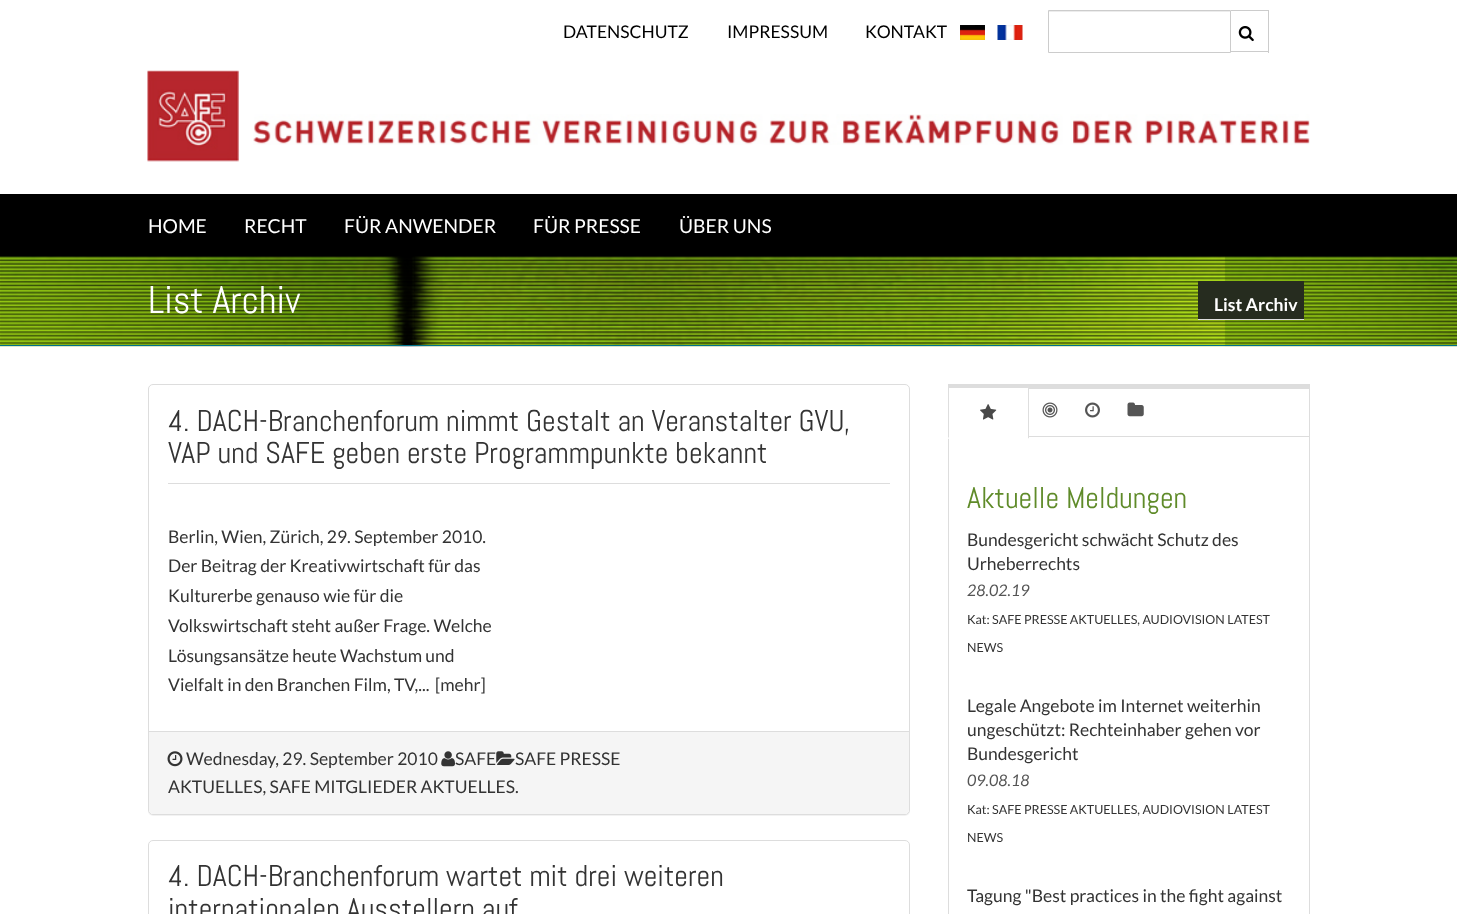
<svg xmlns="http://www.w3.org/2000/svg" width="1457" height="914" viewBox="0 0 1457 914">
  <rect width="100%" height="100%" fill="#fff"/>
  <image x="960" y="25" width="25" height="15" href="img/1.png"/>
  <image x="997" y="25" width="26" height="15" href="img/2.png"/>
  <path d="M1049 11h181v1H1049z" fill="#ececec"/>
  <path d="M1048.5 10.5h182v42H1048.5z" fill="none" stroke="#ccc"/>
  <path d="M1231 10h38v1H1231z" fill="#ccc"/>
  <path d="M1268 10h1v43H1268z" fill="#ccc"/>
  <path d="M1231 51h38v1H1231z" fill="#ccc"/>
  <image x="1238" y="26" width="16" height="16" href="img/3.png"/>
  <image x="147" y="70" width="93" height="92" href="img/4.png"/>
  <image x="253" y="114" width="1057" height="31" href="img/5.png"/>
  <path d="M0 194h1457v62H0z" fill="#000"/>
  <image x="0" y="256" width="1457" height="91" href="img/6.png"/>
  <path d="M0 345h1457v1H0z" fill="#00718c"/>
  <path d="M1198 281h106v38H1198z" fill="#262c1f"/>
  <path d="M1198 319h106v1H1198z" fill="#ddd"/>
  <rect x="148" y="385" width="762" height="431" rx="5" fill="#0000000d" filter="blur(0.5px)"/>
  <rect x="148.5" y="384.5" width="761" height="430" rx="4.5" fill="#fff" stroke="#ddd"/>
  <path d="M168 483h722v1H168z" fill="#ddd"/>
  <path d="M149 731H909V810C909 812 907 814 905 814H153C151 814 149 812 149 810Z" fill="#f5f5f5"/>
  <path d="M149 731h760v1H149z" fill="#ddd"/>
  <image x="167" y="751" width="16" height="16" href="img/7.png"/>
  <image x="441" y="751" width="14" height="16" href="img/8.png"/>
  <image x="496" y="751" width="19" height="14" href="img/9.png"/>
  <rect x="148.5" y="840.5" width="761" height="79" rx="4.5" fill="none" stroke="#ddd"/>
  <path d="M948 384h362v5H948z" fill="#ddd"/>
  <path d="M1309 384h1v530H1309z" fill="#ddd"/>
  <path d="M1029 436h281v1H1029z" fill="#ddd"/>
  <path d="M951 388H1028V438H949V388Z" fill="#fff"/>
  <path d="M1029 386L1028 385L1027 388H1028V438L1029 439Z" fill="#dedede"/>
  <path d="M948 438h1v476H948z" fill="#ddd"/>
  <path d="M1029 439H948L949 437V438H1028Z" fill="#fff"/>
  <path d="M948 386V438L949 437V388Z" fill="#dedede"/>
  <image x="980" y="404" width="17" height="16" href="img/10.png"/>
  <image x="1042" y="402" width="16" height="16" href="img/11.png"/>
  <image x="1085" y="402" width="15" height="16" href="img/12.png"/>
  <image x="1127" y="402" width="17" height="15" href="img/13.png"/>
  <g font-family="Lato" font-size="17.5" fill="#000">
    <text x="563" y="38">DATENSCHUTZ</text>
    <text x="727" y="38">IMPRESSUM</text>
    <text x="865" y="38">KONTAKT</text>
  </g>
  <g font-family="Lato" font-size="19.25" fill="#fff">
    <text x="148" y="233">HOME</text>
    <text x="244" y="233">RECHT</text>
    <text x="344" y="233">FÜR ANWENDER</text>
    <text x="533" y="233">FÜR PRESSE</text>
    <text x="679" y="233">ÜBER UNS</text>
  </g>
  <text x="148" y="313" font-family="Abel" font-size="38.5" fill="#fff">List Archiv</text>
  <text x="1214" y="311" font-family="Lato" font-size="17.5" font-weight="bold" fill="#fff">List Archiv</text>
  <g font-family="Abel" font-size="30" fill="#333">
    <text x="168" y="431">4. DACH-Branchenforum nimmt Gestalt an Veranstalter GVU,</text>
    <text x="168" y="463">VAP und SAFE geben erste Programmpunkte bekannt</text>
  </g>
  <g font-family="Lato" font-size="17.5" fill="#333">
    <text x="168" y="543">Berlin, Wien, Zürich, 29. September 2010.</text>
    <text x="168" y="572">Der Beitrag der Kreativwirtschaft für das</text>
    <text x="168" y="602">Kulturerbe genauso wie für die</text>
    <text x="168" y="632">Volkswirtschaft steht außer Frage. Welche</text>
    <text x="168" y="662">Lösungsansätze heute Wachstum und</text>
    <text x="168" y="691">Vielfalt in den Branchen Film, TV,...</text>
    <text x="435" y="691">[mehr]</text>
    <text x="186" y="765">Wednesday, 29. September 2010</text>
    <text x="455" y="765">SAFE</text>
    <text x="515" y="765">SAFE PRESSE</text>
    <text x="168" y="793">AKTUELLES, SAFE MITGLIEDER AKTUELLES.</text>
  </g>
  <g font-family="Abel" font-size="30" fill="#333">
    <text x="168" y="886">4. DACH-Branchenforum wartet mit drei weiteren</text>
    <text x="168" y="919">internationalen Ausstellern auf</text>
  </g>
  <text x="967" y="508" font-family="Abel" font-size="30" fill="#5f8b29">Aktuelle Meldungen</text>
  <g font-family="Lato" font-size="17.5" fill="#333">
    <text x="967" y="546">Bundesgericht schwächt Schutz des</text>
    <text x="967" y="570">Urheberrechts</text>
  </g>
  <text x="967" y="596" font-family="Lato" font-size="16" font-style="italic" fill="#555">28.02.19</text>
  <g font-family="Lato" font-size="12.5" fill="#333">
    <text x="967" y="624">Kat: SAFE PRESSE AKTUELLES, AUDIOVISION LATEST</text>
    <text x="967" y="652">NEWS</text>
  </g>
  <g font-family="Lato" font-size="17.5" fill="#333">
    <text x="967" y="712">Legale Angebote im Internet weiterhin</text>
    <text x="967" y="736">ungeschützt: Rechteinhaber gehen vor</text>
    <text x="967" y="760">Bundesgericht</text>
  </g>
  <text x="967" y="786" font-family="Lato" font-size="16" font-style="italic" fill="#555">09.08.18</text>
  <g font-family="Lato" font-size="12.5" fill="#333">
    <text x="967" y="814">Kat: SAFE PRESSE AKTUELLES, AUDIOVISION LATEST</text>
    <text x="967" y="842">NEWS</text>
  </g>
  <text x="967" y="902" font-family="Lato" font-size="17.5" fill="#333">Tagung "Best practices in the fight against</text>
</svg>
